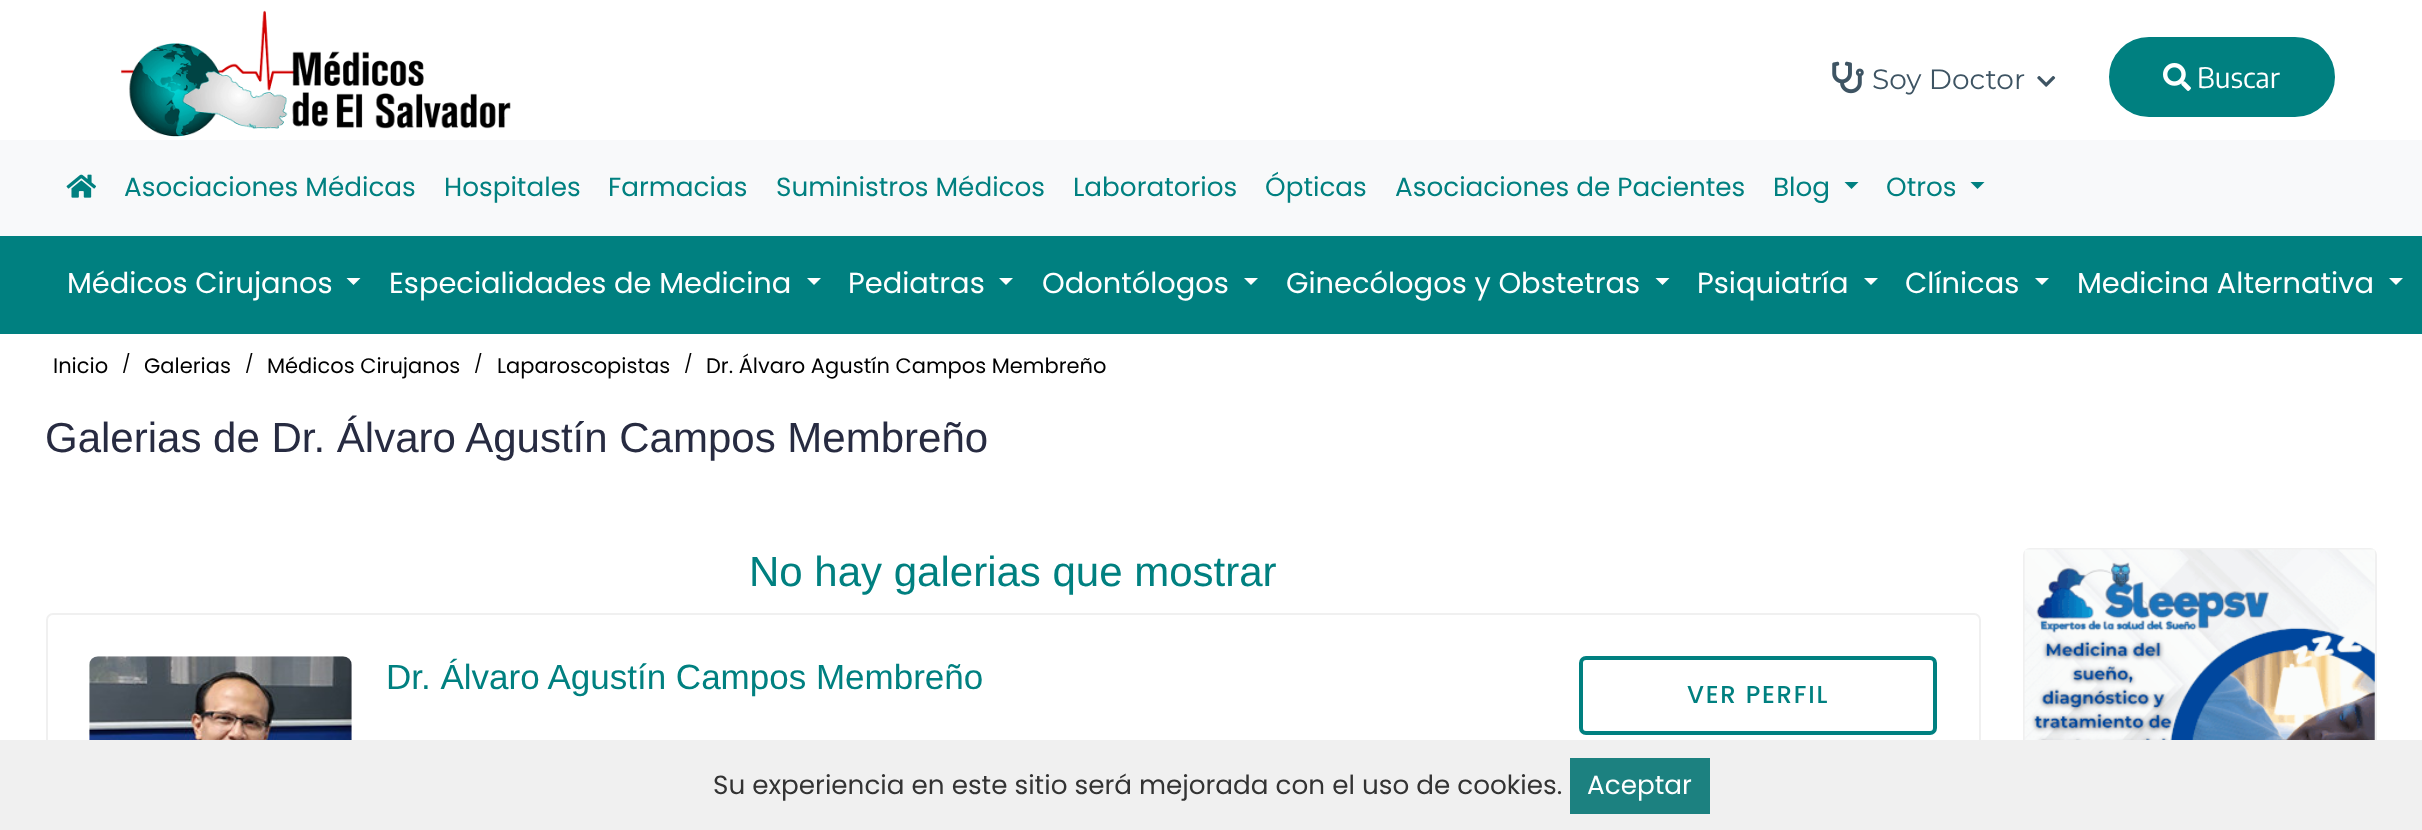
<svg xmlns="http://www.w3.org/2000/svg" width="2422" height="830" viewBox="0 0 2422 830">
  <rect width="100%" height="100%" fill="#fff"/>
  <image x="121" y="10" width="390" height="127" href="img/1.png"/>
  <image x="1832" y="61" width="32" height="33" href="img/2.png"/>
  <image x="2037" y="76" width="19" height="11" href="img/3.png"/>
  <rect x="2110" y="38" width="224" height="78" rx="39" fill="#008080" stroke="#008080" stroke-width="2"/>
  <image x="2163" y="63" width="28" height="28" href="img/4.png"/>
  <path d="M0 140h2422v96H0z" fill="#f8f9fa"/>
  <image x="66" y="174" width="30" height="24" href="img/5.png"/>
  <path d="M1844.5 182H1858.5L1851.5 189Z" fill="#008080"/>
  <path d="M1970.5 182H1984.5L1977.5 189Z" fill="#008080"/>
  <path d="M0 236h2422v98H0z" fill="#008080"/>
  <path d="M346.5 278H360.5L353.5 285Z" fill="#fff"/>
  <path d="M807 278H821L814 285Z" fill="#fff"/>
  <path d="M999 278H1013L1006 285Z" fill="#fff"/>
  <path d="M1244 278H1258L1251 285Z" fill="#fff"/>
  <path d="M1655.5 278H1669.5L1662.5 285Z" fill="#fff"/>
  <path d="M1864 278H1878L1871 285Z" fill="#fff"/>
  <path d="M2035 278H2049L2042 285Z" fill="#fff"/>
  <path d="M2389 278H2403L2396 285Z" fill="#fff"/>
  <rect x="47" y="614" width="1933" height="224" rx="6" fill="none" stroke="#f0f0f0" stroke-width="2"/>
  <image x="89" y="656" width="263" height="84" href="img/6.png"/>
  <rect x="1581" y="658" width="354" height="75" rx="5" fill="none" stroke="#008080" stroke-width="4"/>
  <rect x="2024" y="549" width="352" height="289" rx="6" fill="none" stroke="#f0f0f0" stroke-width="2"/>
  <image x="2024" y="549" width="351" height="191" href="img/7.png"/>
  <path d="M0 740h2422v90H0z" fill="#f0f0f0"/>
  <path d="M1570 758h140v56H1570z" fill="#1c8180"/>
  <text x="1872" y="89" font-family="Montserrat" font-size="28" fill="#3e5463">Soy Doctor</text>
  <text x="2197" y="88" font-family="Encode Sans Condensed" font-size="28" fill="#fff">Buscar</text>
  <g font-family="Poppins" font-size="26.25" fill="#008080">
    <text x="124" y="196">Asociaciones Médicas</text>
    <text x="444" y="196">Hospitales</text>
    <text x="608" y="196">Farmacias</text>
    <text x="776" y="196">Suministros Médicos</text>
    <text x="1073" y="196">Laboratorios</text>
    <text x="1265" y="196">Ópticas</text>
    <text x="1395" y="196">Asociaciones de Pacientes</text>
    <text x="1773" y="196">Blog</text>
    <text x="1886" y="196">Otros</text>
  </g>
  <g font-family="Poppins" font-size="28.9" fill="#fff">
    <text x="67" y="293">Médicos Cirujanos</text>
    <text x="389" y="293">Especialidades de Medicina</text>
    <text x="848" y="293">Pediatras</text>
    <text x="1042" y="293">Odontólogos</text>
    <text x="1286" y="293">Ginecólogos y Obstetras</text>
    <text x="1697" y="293">Psiquiatría</text>
    <text x="1905" y="293">Clínicas</text>
    <text x="2077" y="293">Medicina Alternativa</text>
  </g>
  <text x="53" y="373" font-family="Poppins" font-size="21" fill="#000">Inicio</text>
  <text x="122" y="370" font-family="Poppins" font-size="18" fill="#000">/</text>
  <text x="144" y="373" font-family="Poppins" font-size="21" fill="#000">Galerias</text>
  <text x="245" y="370" font-family="Poppins" font-size="18" fill="#000">/</text>
  <text x="267" y="373" font-family="Poppins" font-size="21" fill="#000">Médicos Cirujanos</text>
  <text x="474" y="370" font-family="Poppins" font-size="18" fill="#000">/</text>
  <text x="497" y="373" font-family="Poppins" font-size="21" fill="#000">Laparoscopistas</text>
  <text x="684" y="370" font-family="Poppins" font-size="18" fill="#000">/</text>
  <text x="706" y="373" font-family="Poppins" font-size="21" fill="#000">Dr. Álvaro Agustín Campos Membreño</text>
  <text x="45" y="452" font-family="Liberation Sans" font-size="42" fill="#272b41">Galerias de Dr. Álvaro Agustín Campos Membreño</text>
  <text x="749" y="586" font-family="Liberation Sans" font-size="42" fill="#008080">No hay galerias que mostrar</text>
  <text x="386" y="689" font-family="Liberation Sans" font-size="35" fill="#008080">Dr. Álvaro Agustín Campos Membreño</text>
  <text x="1687" y="703" font-family="Poppins" font-size="24.5" font-weight="500" letter-spacing="1.75" fill="#008080">VER PERFIL</text>
  <text x="713" y="794" font-family="Poppins" font-size="26.25" fill="#333">Su experiencia en este sitio será mejorada con el uso de cookies.</text>
  <text x="1587" y="794" font-family="Poppins" font-size="26.25" fill="#fff">Aceptar</text>
</svg>
